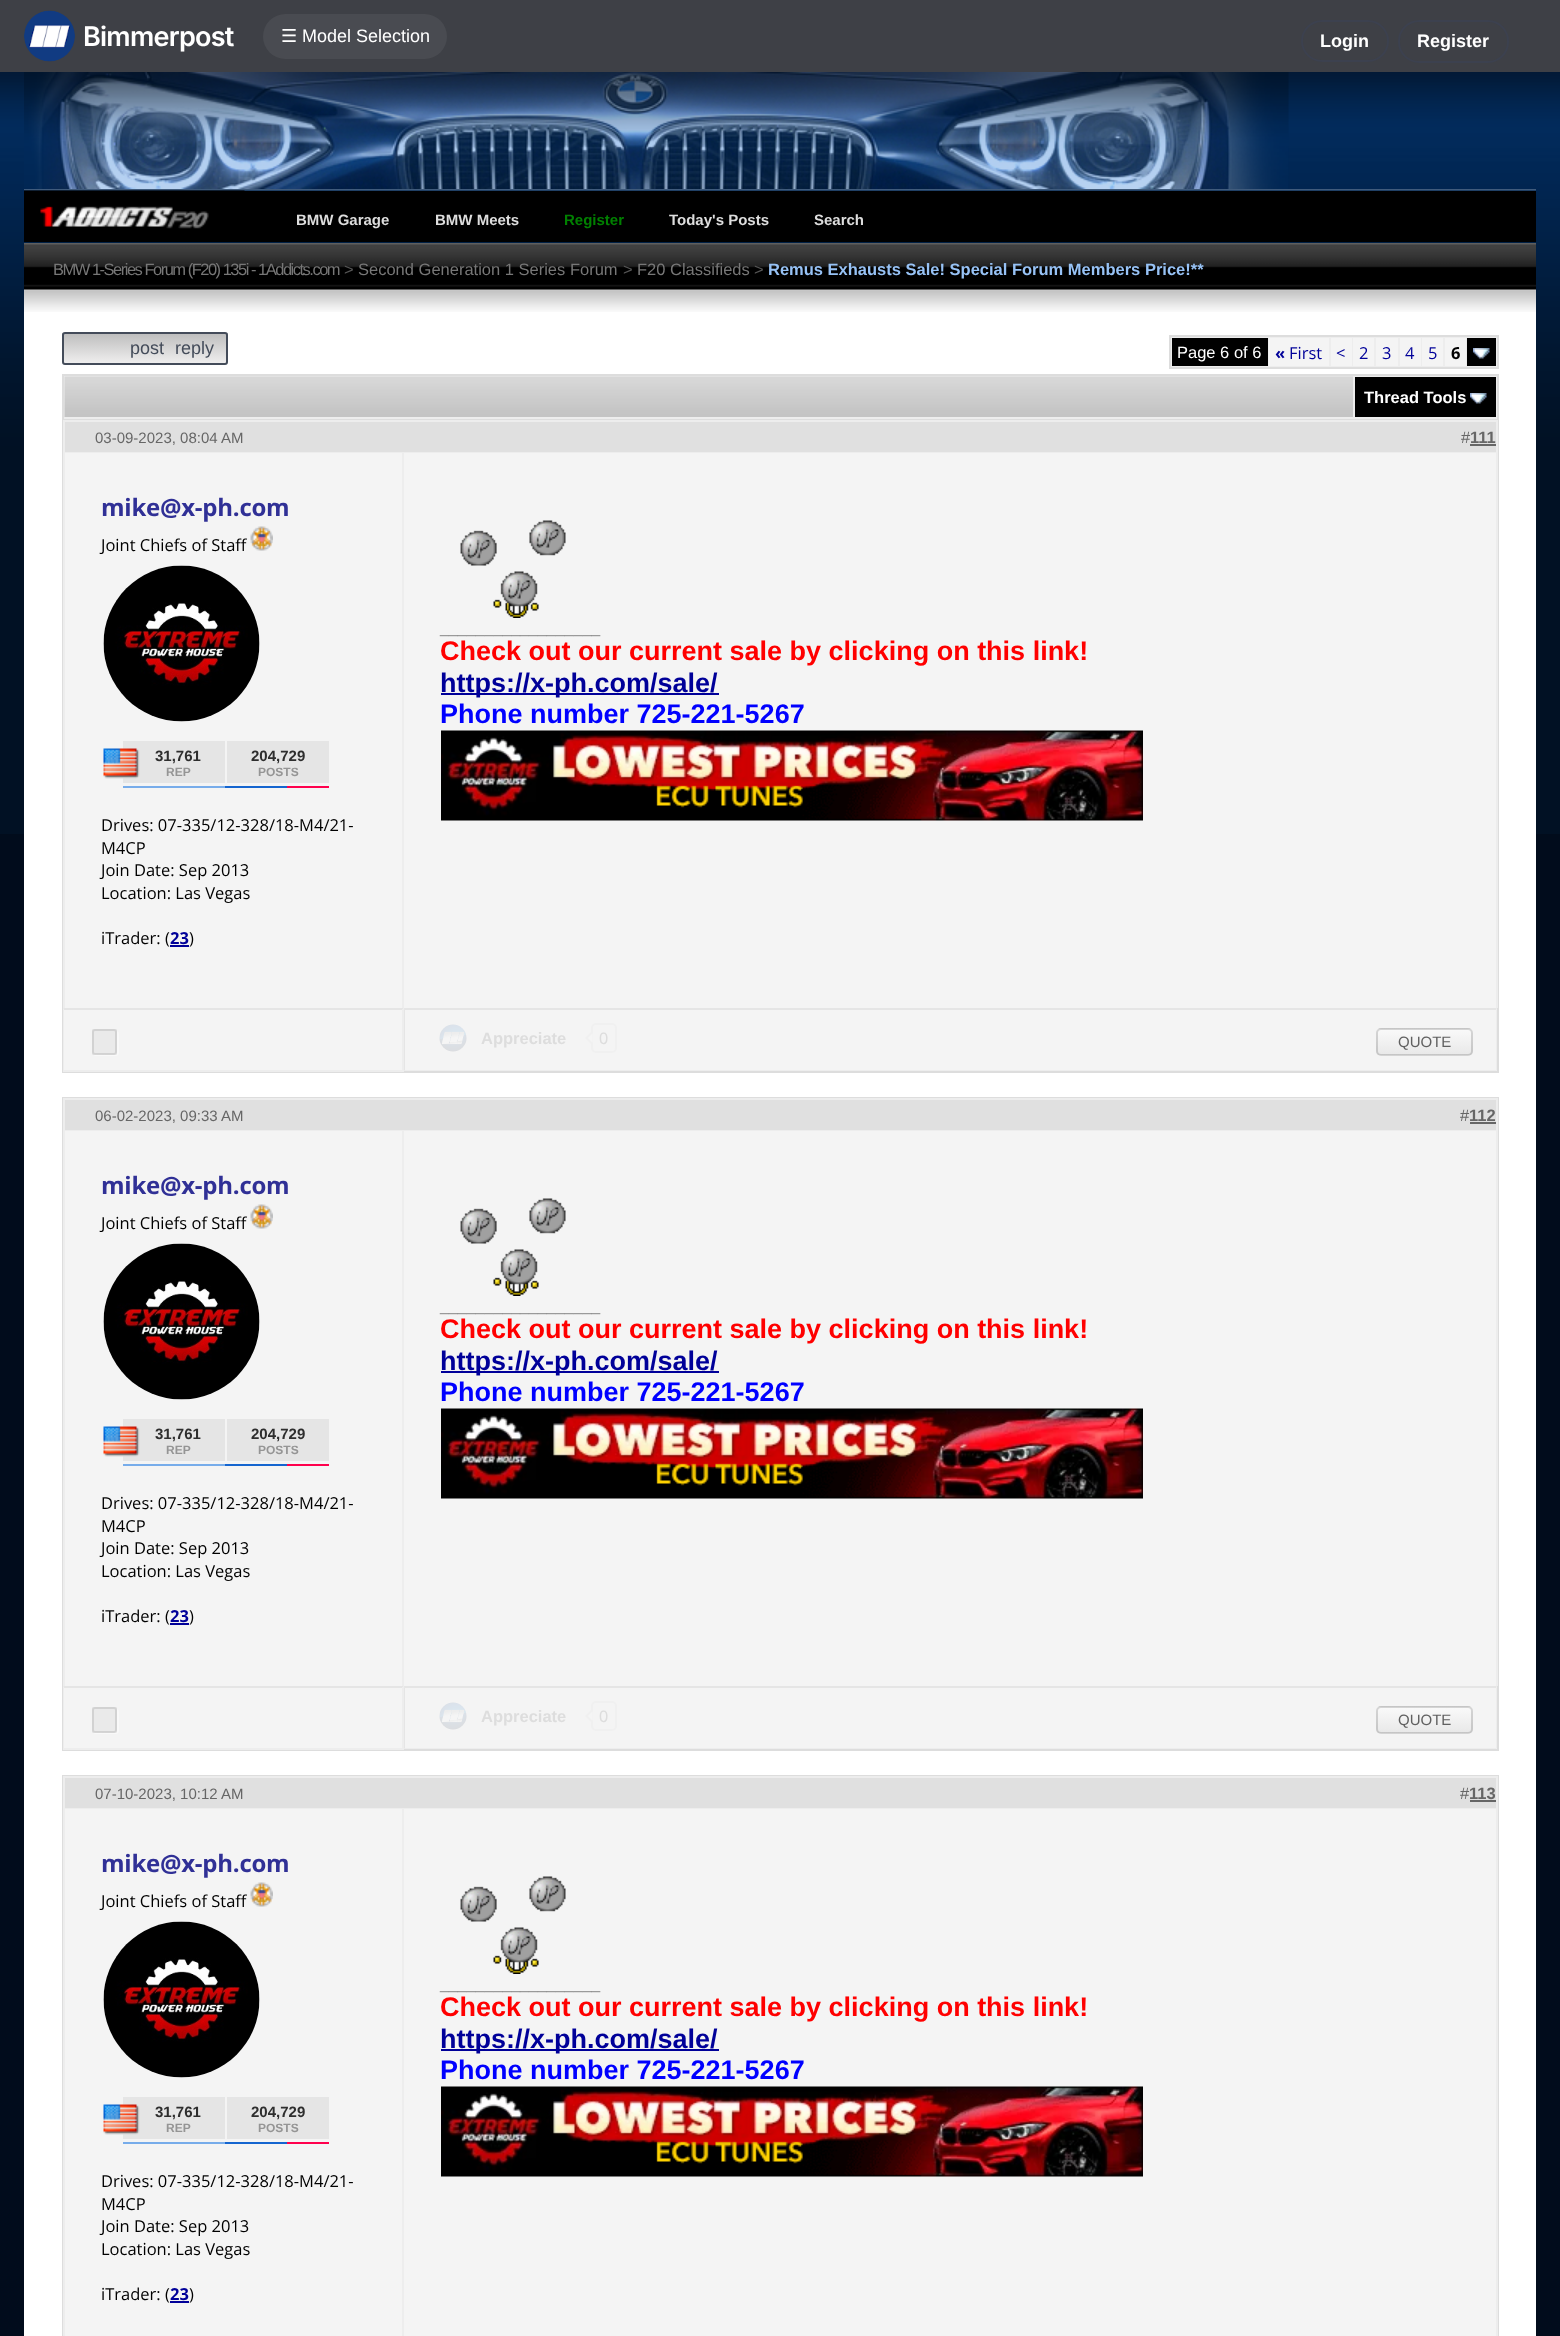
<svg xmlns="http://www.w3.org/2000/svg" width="1560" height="2336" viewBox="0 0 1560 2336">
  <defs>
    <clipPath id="clip1"><rect x="62" y="332" width="166" height="33" rx="3"/></clipPath>
    <linearGradient id="g1" gradientUnits="userSpaceOnUse" x1="145" y1="333" x2="145" y2="363"><stop offset="0" stop-color="#bdbdbd"/><stop offset="1" stop-color="#efeeee"/></linearGradient>
    <clipPath id="clip2"><rect x="1376" y="1028" width="97" height="28" rx="5"/></clipPath>
    <linearGradient id="g2" gradientUnits="userSpaceOnUse" x1="1424" y1="1004" x2="1424" y2="1029"><stop offset="0" stop-color="#fafafa"/><stop offset="1" stop-color="#e8e8e8"/></linearGradient>
    <linearGradient id="g3" gradientUnits="userSpaceOnUse" x1="1424" y1="1029" x2="1424" y2="1055"><stop offset="0" stop-color="#fafafa"/><stop offset="1" stop-color="#e8e8e8"/></linearGradient>
    <linearGradient id="g4" gradientUnits="userSpaceOnUse" x1="1424" y1="1055" x2="1424" y2="1080"><stop offset="0" stop-color="#fafafa"/><stop offset="1" stop-color="#e8e8e8"/></linearGradient>
    <clipPath id="clip3"><rect x="1376" y="1706" width="97" height="28" rx="5"/></clipPath>
    <linearGradient id="g5" gradientUnits="userSpaceOnUse" x1="1424" y1="1682" x2="1424" y2="1707"><stop offset="0" stop-color="#fafafa"/><stop offset="1" stop-color="#e8e8e8"/></linearGradient>
    <linearGradient id="g6" gradientUnits="userSpaceOnUse" x1="1424" y1="1707" x2="1424" y2="1733"><stop offset="0" stop-color="#fafafa"/><stop offset="1" stop-color="#e8e8e8"/></linearGradient>
    <linearGradient id="g7" gradientUnits="userSpaceOnUse" x1="1424" y1="1733" x2="1424" y2="1758"><stop offset="0" stop-color="#fafafa"/><stop offset="1" stop-color="#e8e8e8"/></linearGradient>
  </defs>
  <rect width="100%" height="100%" fill="#010c1c"/>
  <image x="0" y="72" width="1560" height="762" href="img/1.png"/>
  <path d="M0 0h1560v72H0z" fill="#3e4046"/>
  <image x="24" y="10" width="51" height="52" href="img/2.png"/>
  <rect x="263" y="14" width="184" height="45" rx="22.5" fill="#494b51"/>
  <rect x="1302" y="21" width="86" height="40" rx="20" fill="none" stroke="#3c414f" stroke-width="2"/>
  <rect x="1399" y="21" width="109" height="41" rx="20" fill="none" stroke="#3c414f" stroke-width="2"/>
  <image x="24" y="72" width="1265" height="117" href="img/3.png"/>
  <image x="24" y="189" width="1512" height="2" href="img/4.png"/>
  <path d="M24 191h1512v51H24z" fill="#000"/>
  <image x="24" y="190" width="221" height="39" href="img/5.png"/>
  <path d="M24 312h1512v2024H24z" fill="#fff"/>
  <image x="24" y="243" width="1512" height="69" href="img/6.png"/>
  <g clip-path="url(#clip1)">
    <path d="M62 333h166v30H62z" fill="url(#g1)"/>
  </g>
  <rect x="63" y="333" width="164" height="31" rx="2" fill="none" stroke="#444c5a" stroke-width="2"/>
  <path d="M1170 336h328v32H1170z" fill="#ededed" stroke="#ddd" stroke-width="2"/>
  <path d="M1172 338h96v28H1172z" fill="#000"/>
  <path d="M1269 338h60v28H1269z" fill="#f4f4f4"/>
  <path d="M1331 338h21v28H1331z" fill="#f4f4f4"/>
  <path d="M1353 338h21v28H1353z" fill="#f4f4f4"/>
  <path d="M1376 338h22v28H1376z" fill="#f4f4f4"/>
  <path d="M1400 338h21v28H1400z" fill="#f4f4f4"/>
  <path d="M1422 338h21v28H1422z" fill="#f4f4f4"/>
  <path d="M1445 338h21v28H1445z" fill="#f4f4f4"/>
  <path d="M1467 338h29v28H1467z" fill="#000"/>
  <image x="1473" y="348" width="17" height="11" href="img/7.png"/>
  <path d="M64 376h1433v43H64z" fill="#ededed"/>
  <path d="M62 374h1437v2H62z" fill="#ddd"/>
  <path d="M1497 374h2v45H1497z" fill="#ddd"/>
  <path d="M62 374h2v45H62z" fill="#ddd"/>
  <image x="64" y="376" width="1289" height="41" href="img/8.png"/>
  <path d="M1355 377h141v40H1355z" fill="#000"/>
  <image x="1470" y="393" width="17" height="11" href="img/7.png"/>
  <path d="M63 420h1435v652H63z" fill="none" stroke="#ddd" stroke-width="2"/>
  <path d="M65 422h1431v30H65z" fill="#e0e0e0"/>
  <path d="M63 420h1434v2H63z" fill="#ededed"/>
  <path d="M63 452h341v1H63z" fill="#ededed"/>
  <path d="M63 420h2v588H63z" fill="#ededed"/>
  <path d="M1496 420h2v588H1496z" fill="#ededed"/>
  <path d="M404 452h1093v1H404z" fill="#ededed"/>
  <path d="M1470 444h26v2H1470z" fill="#666"/>
  <path d="M65 453h337v555H65z" fill="#f4f4f4"/>
  <path d="M402 453h2v555H402z" fill="#ededed"/>
  <image x="250" y="526" width="23" height="25" href="img/9.png"/>
  <image x="103" y="565" width="157" height="157" href="img/10.png"/>
  <path d="M123 741h102v42H123z" fill="#e5e5e5"/>
  <image x="103" y="748" width="37" height="31" href="img/11.png"/>
  <path d="M227 741h102v42H227z" fill="#e5e5e5"/>
  <path d="M225 786h62v2H225z" fill="#1565cf"/>
  <path d="M123 786h102v2H123z" fill="#77acea"/>
  <path d="M287 786h42v2H287z" fill="#ff004d"/>
  <path d="M170 945h19v2H170z" fill="#009"/>
  <path d="M404 453h1092v555H404z" fill="#f4f4f4"/>
  <image x="460" y="520" width="106" height="98" href="img/12.png"/>
  <path d="M441 693h278v2H441z" fill="#009"/>
  <image x="441" y="730" width="702" height="91" href="img/13.png"/>
  <path d="M63 1008h341v62H63z" fill="#f4f4f4"/>
  <path d="M63 1008H404L402 1010H64Z" fill="#e5e5e5"/>
  <path d="M404 1008V1071L402 1070V1010Z" fill="#ededed"/>
  <path d="M63 1070h341v2H63z" fill="#ededed"/>
  <path d="M63 1071V1008L64 1010V1070Z" fill="#ededed"/>
  <path d="M93.5 1054C93.5 1055.5 95 1056 96 1056H116C117.5 1056 119 1054.5 119 1053V1034C119 1032.5 118 1031.5 117 1031V1052C116.5 1055 113 1054.5 111 1054.5Z" fill="#f9f9f9"/>
  <path d="M92 1029h25v26H92z" fill="#0000000a"/>
  <rect x="93" y="1030" width="23" height="24" rx="2" fill="none" stroke="#0000001a" stroke-width="2"/>
  <path d="M404 1008h1093v63H404z" fill="#f4f4f4"/>
  <path d="M404 1008H1497L1496 1010H405Z" fill="#e5e5e5"/>
  <path d="M1497 1008V1071L1496 1070V1010Z" fill="#ededed"/>
  <path d="M1497 1071H404L405 1070H1496Z" fill="#ededed"/>
  <path d="M404 1071V1008L405 1010V1070Z" fill="#0000000f"/>
  <image x="439" y="1024" width="28" height="28" href="img/14.png"/>
  <rect x="592" y="1024" width="24" height="28" rx="4" fill="none" stroke="#f0f0f0" stroke-width="2"/>
  <path d="M592.5 1030.5V1045.5L585 1038Z" fill="#f0f0f0"/>
  <path d="M592.5 1033.5V1042.5L588 1038Z" fill="#f5f5f5"/>
  <g clip-path="url(#clip2)">
    <path d="M1376 1028h97v1H1376z" fill="url(#g2)"/>
    <path d="M1376 1029h97v26H1376z" fill="url(#g3)"/>
    <path d="M1376 1055h97v1H1376z" fill="url(#g4)"/>
  </g>
  <rect x="1377" y="1029" width="95" height="26" rx="4" fill="none" stroke="#00000026" stroke-width="2"/>
  <path d="M63 1098h1435v652H63z" fill="none" stroke="#ddd" stroke-width="2"/>
  <path d="M65 1100h1431v30H65z" fill="#e0e0e0"/>
  <path d="M63 1098h1434v2H63z" fill="#ededed"/>
  <path d="M63 1130h341v1H63z" fill="#ededed"/>
  <path d="M63 1098h2v588H63z" fill="#ededed"/>
  <path d="M1496 1098h2v588H1496z" fill="#ededed"/>
  <path d="M404 1130h1093v1H404z" fill="#ededed"/>
  <path d="M1470 1122h26v2H1470z" fill="#666"/>
  <path d="M65 1131h337v555H65z" fill="#f4f4f4"/>
  <path d="M402 1131h2v555H402z" fill="#ededed"/>
  <image x="250" y="1204" width="23" height="25" href="img/9.png"/>
  <image x="103" y="1243" width="157" height="157" href="img/15.png"/>
  <path d="M123 1419h102v42H123z" fill="#e5e5e5"/>
  <image x="103" y="1426" width="37" height="31" href="img/11.png"/>
  <path d="M227 1419h102v42H227z" fill="#e5e5e5"/>
  <path d="M225 1464h62v2H225z" fill="#1565cf"/>
  <path d="M123 1464h102v2H123z" fill="#77acea"/>
  <path d="M287 1464h42v2H287z" fill="#ff004d"/>
  <path d="M170 1623h19v2H170z" fill="#009"/>
  <path d="M404 1131h1092v555H404z" fill="#f4f4f4"/>
  <image x="460" y="1198" width="106" height="98" href="img/12.png"/>
  <path d="M441 1371h278v2H441z" fill="#009"/>
  <image x="441" y="1408" width="702" height="91" href="img/13.png"/>
  <path d="M63 1686h341v62H63z" fill="#f4f4f4"/>
  <path d="M63 1686H404L402 1688H64Z" fill="#e5e5e5"/>
  <path d="M404 1686V1749L402 1748V1688Z" fill="#ededed"/>
  <path d="M63 1748h341v2H63z" fill="#ededed"/>
  <path d="M63 1749V1686L64 1688V1748Z" fill="#ededed"/>
  <path d="M93.5 1732C93.5 1733.5 95 1734 96 1734H116C117.5 1734 119 1732.5 119 1731V1712C119 1710.5 118 1709.5 117 1709V1730C116.5 1733 113 1732.5 111 1732.5Z" fill="#f9f9f9"/>
  <path d="M92 1707h25v26H92z" fill="#0000000a"/>
  <rect x="93" y="1708" width="23" height="24" rx="2" fill="none" stroke="#0000001a" stroke-width="2"/>
  <path d="M404 1686h1093v63H404z" fill="#f4f4f4"/>
  <path d="M404 1686H1497L1496 1688H405Z" fill="#e5e5e5"/>
  <path d="M1497 1686V1749L1496 1748V1688Z" fill="#ededed"/>
  <path d="M1497 1749H404L405 1748H1496Z" fill="#ededed"/>
  <path d="M404 1749V1686L405 1688V1748Z" fill="#0000000f"/>
  <image x="439" y="1702" width="28" height="28" href="img/14.png"/>
  <rect x="592" y="1702" width="24" height="28" rx="4" fill="none" stroke="#f0f0f0" stroke-width="2"/>
  <path d="M592.5 1708.5V1723.5L585 1716Z" fill="#f0f0f0"/>
  <path d="M592.5 1711.5V1720.5L588 1716Z" fill="#f5f5f5"/>
  <g clip-path="url(#clip3)">
    <path d="M1376 1706h97v1H1376z" fill="url(#g5)"/>
    <path d="M1376 1707h97v26H1376z" fill="url(#g6)"/>
    <path d="M1376 1733h97v1H1376z" fill="url(#g7)"/>
  </g>
  <rect x="1377" y="1707" width="95" height="26" rx="4" fill="none" stroke="#00000026" stroke-width="2"/>
  <path d="M63 1776h1435v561H63z" fill="none" stroke="#ddd" stroke-width="2"/>
  <path d="M65 1778h1431v30H65z" fill="#e0e0e0"/>
  <path d="M63 1776h1434v2H63z" fill="#ededed"/>
  <path d="M63 1808h341v1H63z" fill="#ededed"/>
  <path d="M63 1776h2v560H63z" fill="#ededed"/>
  <path d="M1496 1776h2v560H1496z" fill="#ededed"/>
  <path d="M404 1808h1093v1H404z" fill="#ededed"/>
  <path d="M1470 1800h26v2H1470z" fill="#666"/>
  <path d="M65 1809h337v527H65z" fill="#f4f4f4"/>
  <path d="M402 1809h2v527H402z" fill="#ededed"/>
  <image x="250" y="1882" width="23" height="25" href="img/9.png"/>
  <image x="103" y="1921" width="157" height="157" href="img/16.png"/>
  <path d="M123 2097h102v42H123z" fill="#e5e5e5"/>
  <image x="103" y="2104" width="37" height="31" href="img/11.png"/>
  <path d="M227 2097h102v42H227z" fill="#e5e5e5"/>
  <path d="M225 2142h62v2H225z" fill="#1565cf"/>
  <path d="M123 2142h102v2H123z" fill="#77acea"/>
  <path d="M287 2142h42v2H287z" fill="#ff004d"/>
  <path d="M170 2301h19v2H170z" fill="#009"/>
  <path d="M404 1809h1092v527H404z" fill="#f4f4f4"/>
  <image x="460" y="1876" width="106" height="98" href="img/12.png"/>
  <path d="M441 2049h278v2H441z" fill="#009"/>
  <image x="441" y="2086" width="702" height="91" href="img/13.png"/>
  <text x="83" y="46" font-family="Inter" font-size="27" font-weight="600" letter-spacing="-0.75" fill="#fff">Bimmerpost</text>
  <text x="281" y="42" font-family="DejaVu Sans" font-size="18" fill="#fff">☰</text>
  <text x="302" y="42" font-family="Liberation Sans" font-size="18" fill="#fff">Model Selection</text>
  <g font-family="Liberation Sans" font-size="18" font-weight="bold" fill="#fff">
    <text x="1320" y="47">Login</text>
    <text x="1417" y="47">Register</text>
  </g>
  <g font-family="Liberation Sans" font-size="15" font-weight="bold" fill="#ddd">
    <text x="296" y="225">BMW Garage</text>
    <text x="435" y="225">BMW Meets</text>
  </g>
  <text x="564" y="225" font-family="Liberation Sans" font-size="15" font-weight="bold" fill="#008000">Register</text>
  <g font-family="Liberation Sans" font-size="15" font-weight="bold" fill="#ddd">
    <text x="669" y="225">Today's Posts</text>
    <text x="814" y="225">Search</text>
  </g>
  <text x="53" y="275" font-family="Liberation Sans" font-size="16.5" letter-spacing="-1.5" fill="#777">BMW 1-Series Forum (F20) 135i - 1Addicts.com</text>
  <text x="344" y="275" font-family="Liberation Sans" font-size="16.5" fill="#555">&gt;</text>
  <text x="358" y="275" font-family="Liberation Sans" font-size="16.5" fill="#777">Second Generation 1 Series Forum</text>
  <text x="623" y="275" font-family="Liberation Sans" font-size="16.5" fill="#555">&gt;</text>
  <text x="637" y="275" font-family="Liberation Sans" font-size="16.5" fill="#777">F20 Classifieds</text>
  <text x="754" y="275" font-family="Liberation Sans" font-size="16.5" fill="#555">&gt;</text>
  <text x="768" y="275" font-family="Liberation Sans" font-size="16.5" font-weight="bold" fill="#97c2f5">Remus Exhausts Sale! Special Forum Members Price!**</text>
  <text x="130" y="354" word-spacing="6" font-family="Liberation Sans" font-size="18" fill="#444c5a">post reply</text>
  <text x="1177" y="358" font-family="Liberation Sans" font-size="16.5" fill="#fff">Page 6 of 6</text>
  <text x="1275" y="359" font-family="Open Sans" font-size="16.5" font-weight="bold" fill="#009">«</text>
  <g font-family="Open Sans" font-size="16.5" fill="#009">
    <text x="1289" y="359">First</text>
    <text x="1336" y="359">&lt;</text>
    <text x="1359" y="359">2</text>
    <text x="1382" y="359">3</text>
    <text x="1405" y="359">4</text>
    <text x="1428" y="359">5</text>
  </g>
  <text x="1451" y="359" font-family="Open Sans" font-size="16.5" font-weight="bold" fill="#000">6</text>
  <text x="1364" y="403" font-family="Liberation Sans" font-size="16.5" font-weight="bold" fill="#fff">Thread Tools</text>
  <text x="95" y="443" font-family="Liberation Sans" font-size="15" fill="#666">03-09-2023, 08:04 AM</text>
  <text x="1461" y="443" font-family="Liberation Sans" font-size="16.5" fill="#666">#</text>
  <text x="1470" y="443" font-family="Liberation Sans" font-size="16.5" font-weight="bold" fill="#666">111</text>
  <text x="101" y="516" font-family="Open Sans" font-size="24" font-weight="bold" letter-spacing="-0.25" fill="#303096">mike@x-ph.com</text>
  <text x="101" y="551" font-family="Open Sans" font-size="16.5" fill="#000">Joint Chiefs of Staff</text>
  <text x="155" y="761" font-family="Liberation Sans" font-size="15" font-weight="bold" fill="#2e2e2e">31,761</text>
  <text x="166" y="776" font-family="Liberation Sans" font-size="12" font-weight="bold" fill="#959595">REP</text>
  <text x="251" y="761" font-family="Liberation Sans" font-size="15" font-weight="bold" fill="#2e2e2e">204,729</text>
  <text x="258" y="776" font-family="Liberation Sans" font-size="12" font-weight="bold" fill="#959595">POSTS</text>
  <g font-family="Open Sans" font-size="16.5" fill="#000">
    <text x="101" y="831">Drives: 07-335/12-328/18-M4/21-</text>
    <text x="101" y="854">M4CP</text>
    <text x="101" y="876">Join Date: Sep 2013</text>
    <text x="101" y="899">Location: Las Vegas</text>
    <text x="101" y="944">iTrader: (</text>
  </g>
  <text x="170" y="944" font-family="Open Sans" font-size="16.5" font-weight="bold" fill="#009">23</text>
  <text x="189" y="944" font-family="Open Sans" font-size="16.5" fill="#000">)</text>
  <text x="440" y="633" font-family="Liberation Sans" font-size="16" fill="#898989">__________________</text>
  <text x="440" y="660" font-family="Liberation Sans" font-size="27" font-weight="bold" fill="#f00">Check out our current sale by clicking on this link!</text>
  <text x="440" y="692" font-family="Liberation Sans" font-size="27" font-weight="bold" fill="#009">https://x-ph.com/sale/</text>
  <text x="440" y="723" font-family="Liberation Sans" font-size="27" font-weight="bold" fill="#00f">Phone number 725-221-5267</text>
  <text x="481" y="1044" font-family="Liberation Sans" font-size="16.5" font-weight="bold" fill="#ddd">Appreciate</text>
  <text x="599" y="1044" font-family="Liberation Sans" font-size="16.5" fill="#ddd">0</text>
  <text x="1398" y="1047" font-family="Liberation Sans" font-size="15" fill="#606060">QUOTE</text>
  <text x="95" y="1121" font-family="Liberation Sans" font-size="15" fill="#666">06-02-2023, 09:33 AM</text>
  <text x="1460" y="1121" font-family="Liberation Sans" font-size="16.5" fill="#666">#</text>
  <text x="1469" y="1121" font-family="Liberation Sans" font-size="16.5" font-weight="bold" fill="#666">112</text>
  <text x="101" y="1194" font-family="Open Sans" font-size="24" font-weight="bold" letter-spacing="-0.25" fill="#303096">mike@x-ph.com</text>
  <text x="101" y="1229" font-family="Open Sans" font-size="16.5" fill="#000">Joint Chiefs of Staff</text>
  <text x="155" y="1439" font-family="Liberation Sans" font-size="15" font-weight="bold" fill="#2e2e2e">31,761</text>
  <text x="166" y="1454" font-family="Liberation Sans" font-size="12" font-weight="bold" fill="#959595">REP</text>
  <text x="251" y="1439" font-family="Liberation Sans" font-size="15" font-weight="bold" fill="#2e2e2e">204,729</text>
  <text x="258" y="1454" font-family="Liberation Sans" font-size="12" font-weight="bold" fill="#959595">POSTS</text>
  <g font-family="Open Sans" font-size="16.5" fill="#000">
    <text x="101" y="1509">Drives: 07-335/12-328/18-M4/21-</text>
    <text x="101" y="1532">M4CP</text>
    <text x="101" y="1554">Join Date: Sep 2013</text>
    <text x="101" y="1577">Location: Las Vegas</text>
    <text x="101" y="1622">iTrader: (</text>
  </g>
  <text x="170" y="1622" font-family="Open Sans" font-size="16.5" font-weight="bold" fill="#009">23</text>
  <text x="189" y="1622" font-family="Open Sans" font-size="16.5" fill="#000">)</text>
  <text x="440" y="1311" font-family="Liberation Sans" font-size="16" fill="#898989">__________________</text>
  <text x="440" y="1338" font-family="Liberation Sans" font-size="27" font-weight="bold" fill="#f00">Check out our current sale by clicking on this link!</text>
  <text x="440" y="1370" font-family="Liberation Sans" font-size="27" font-weight="bold" fill="#009">https://x-ph.com/sale/</text>
  <text x="440" y="1401" font-family="Liberation Sans" font-size="27" font-weight="bold" fill="#00f">Phone number 725-221-5267</text>
  <text x="481" y="1722" font-family="Liberation Sans" font-size="16.5" font-weight="bold" fill="#ddd">Appreciate</text>
  <text x="599" y="1722" font-family="Liberation Sans" font-size="16.5" fill="#ddd">0</text>
  <text x="1398" y="1725" font-family="Liberation Sans" font-size="15" fill="#606060">QUOTE</text>
  <text x="95" y="1799" font-family="Liberation Sans" font-size="15" fill="#666">07-10-2023, 10:12 AM</text>
  <text x="1460" y="1799" font-family="Liberation Sans" font-size="16.5" fill="#666">#</text>
  <text x="1469" y="1799" font-family="Liberation Sans" font-size="16.5" font-weight="bold" fill="#666">113</text>
  <text x="101" y="1872" font-family="Open Sans" font-size="24" font-weight="bold" letter-spacing="-0.25" fill="#303096">mike@x-ph.com</text>
  <text x="101" y="1907" font-family="Open Sans" font-size="16.5" fill="#000">Joint Chiefs of Staff</text>
  <text x="155" y="2117" font-family="Liberation Sans" font-size="15" font-weight="bold" fill="#2e2e2e">31,761</text>
  <text x="166" y="2132" font-family="Liberation Sans" font-size="12" font-weight="bold" fill="#959595">REP</text>
  <text x="251" y="2117" font-family="Liberation Sans" font-size="15" font-weight="bold" fill="#2e2e2e">204,729</text>
  <text x="258" y="2132" font-family="Liberation Sans" font-size="12" font-weight="bold" fill="#959595">POSTS</text>
  <g font-family="Open Sans" font-size="16.5" fill="#000">
    <text x="101" y="2187">Drives: 07-335/12-328/18-M4/21-</text>
    <text x="101" y="2210">M4CP</text>
    <text x="101" y="2232">Join Date: Sep 2013</text>
    <text x="101" y="2255">Location: Las Vegas</text>
    <text x="101" y="2300">iTrader: (</text>
  </g>
  <text x="170" y="2300" font-family="Open Sans" font-size="16.5" font-weight="bold" fill="#009">23</text>
  <text x="189" y="2300" font-family="Open Sans" font-size="16.5" fill="#000">)</text>
  <text x="440" y="1989" font-family="Liberation Sans" font-size="16" fill="#898989">__________________</text>
  <text x="440" y="2016" font-family="Liberation Sans" font-size="27" font-weight="bold" fill="#f00">Check out our current sale by clicking on this link!</text>
  <text x="440" y="2048" font-family="Liberation Sans" font-size="27" font-weight="bold" fill="#009">https://x-ph.com/sale/</text>
  <text x="440" y="2079" font-family="Liberation Sans" font-size="27" font-weight="bold" fill="#00f">Phone number 725-221-5267</text>
</svg>
